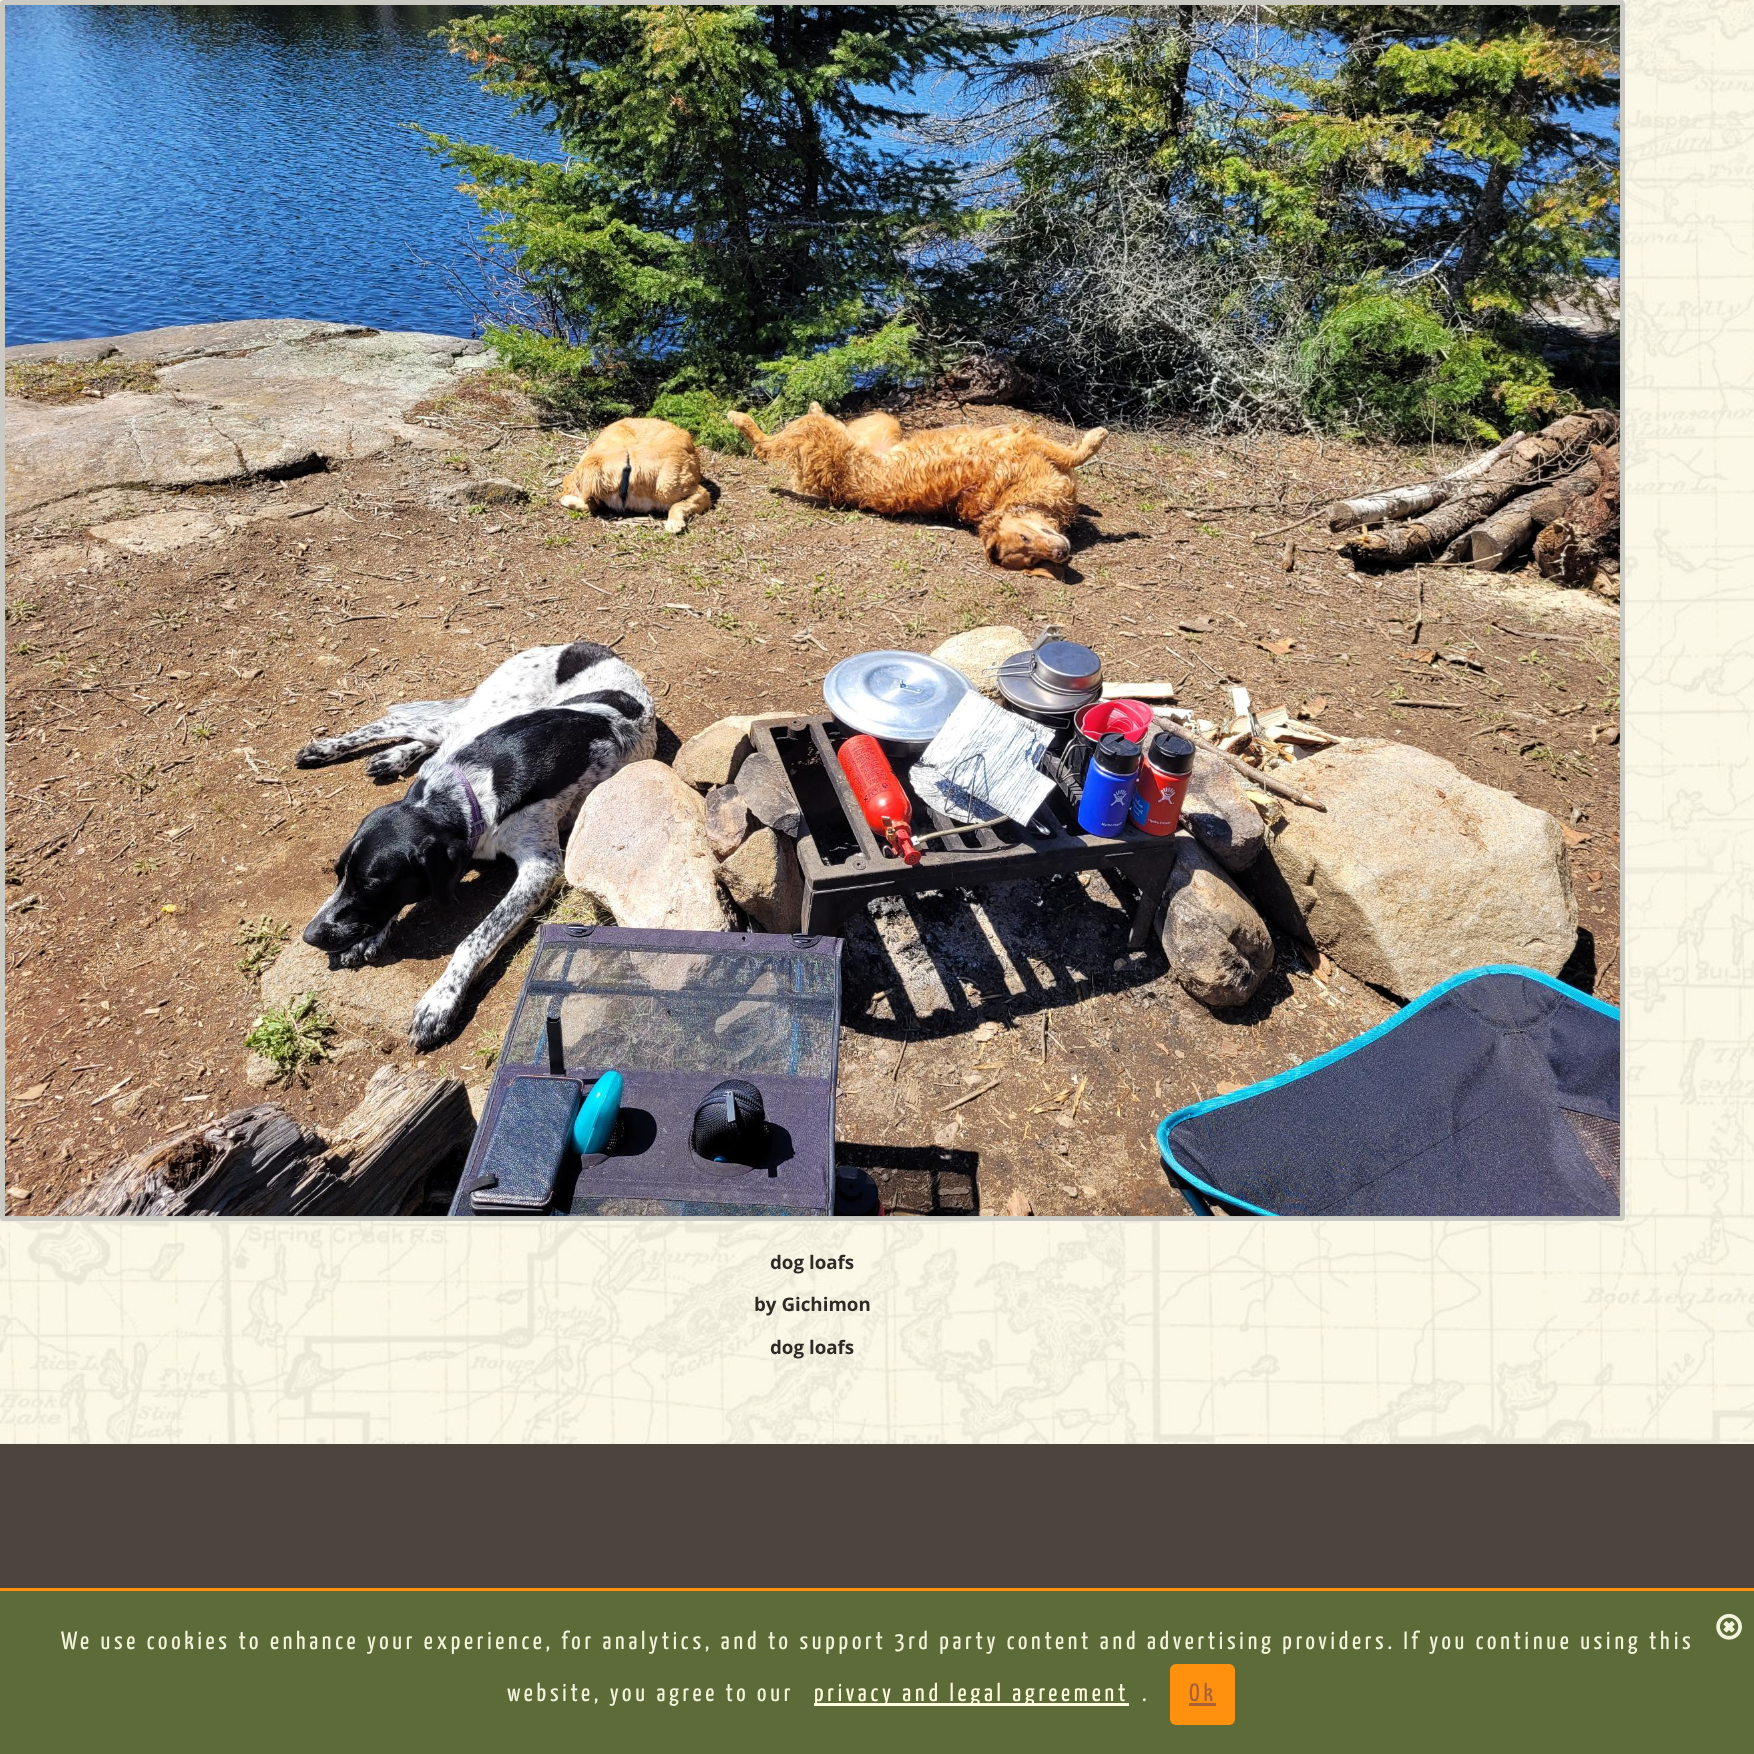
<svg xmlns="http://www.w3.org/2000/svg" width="1754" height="1754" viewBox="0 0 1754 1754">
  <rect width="100%" height="100%" fill="#4c443d"/>
  <image x="0" y="0" width="1754" height="1444" href="img/1.png"/>
  <rect x="2.5" y="2.5" width="1620" height="1216" rx="1.5" fill="none" stroke="#cbcac2" stroke-width="5"/>
  <image x="5" y="5" width="1615" height="1212" href="img/2.png"/>
  <path d="M0 1591h1754v163H0z" fill="#5c6b37"/>
  <path d="M0 1588h1754v3H0z" fill="#ff910e"/>
  <image x="1716" y="1613" width="26" height="27" href="img/3.png"/>
  <path d="M814 1703h315v3H814z" fill="#ffffe0"/>
  <rect x="1170" y="1664" width="65" height="61" rx="6" fill="#ff910e"/>
  <path d="M1189 1703h27v3H1189z" fill="#a66138"/>
  <g font-family="Open Sans" font-size="18.75" font-weight="bold" fill="#2f2a26">
    <text x="770" y="1269">dog loafs</text>
    <text x="754" y="1311">by Gichimon</text>
    <text x="770" y="1354">dog loafs</text>
  </g>
  <g font-family="Yanone Kaffeesatz" font-size="25" letter-spacing="3.75" fill="#f2f5db">
    <text x="61" y="1649">We use cookies to enhance your experience, for analytics, and to support 3rd party content and advertising providers. If you continue using this</text>
    <text x="507" y="1701">website, you agree to our</text>
  </g>
  <text x="814" y="1701" font-family="Yanone Kaffeesatz" font-size="25" letter-spacing="3.75" fill="#ffffe0">privacy and legal agreement</text>
  <text x="1142" y="1701" font-family="Yanone Kaffeesatz" font-size="25" letter-spacing="3.75" fill="#f2f5db">.</text>
  <text x="1189" y="1701" font-family="Yanone Kaffeesatz" font-size="25" letter-spacing="3.75" fill="#a66138">Ok</text>
</svg>
